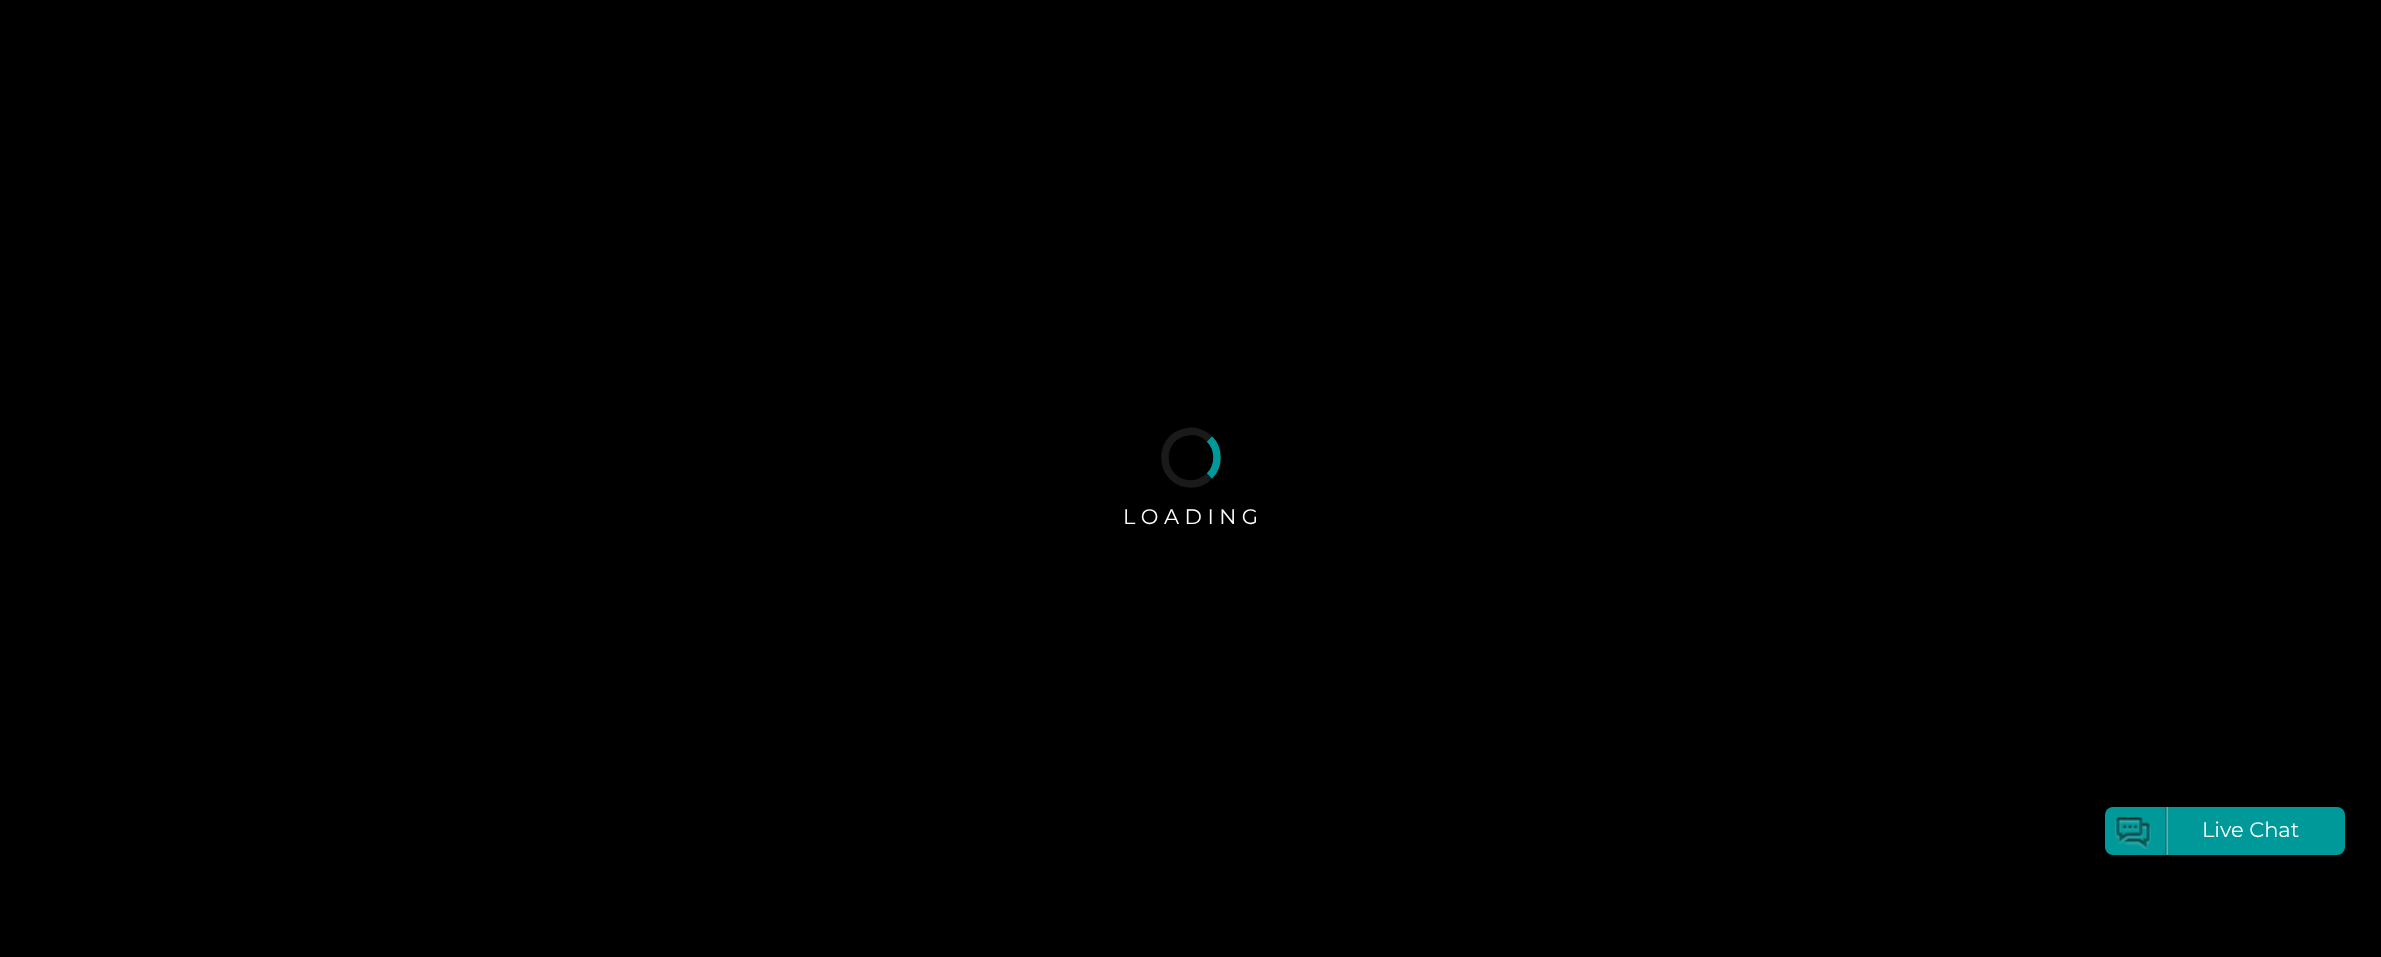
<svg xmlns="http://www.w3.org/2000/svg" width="2381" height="957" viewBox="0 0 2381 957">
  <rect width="100%" height="100%" fill="#000"/>
  <path d="M1209.5 439C1219.5 449 1219.5 466 1209.5 476" fill="none" stroke="#099" stroke-width="7.5"/>
  <path d="M1209.5 476C1204.5 481 1198 484 1191 484C1159.5 484 1155 438 1186 432C1194.5 430 1203.5 433 1209.5 439" fill="none" stroke="#ffffff1a" stroke-width="7.5"/>
  <rect x="2105" y="807" width="240" height="48" rx="8" fill="#099"/>
  <image x="2115" y="817" width="36" height="32" href="img/1.png"/>
  <path d="M2166 807h2v48H2166z" fill="#4db8b8"/>
  <path d="M2165 807h2v48H2165z" fill="#00000033"/>
  <g font-family="Montserrat" font-size="21" fill="#fff">
    <text x="1123" y="524">L O A D I N G</text>
    <text x="2202" y="837">Live Chat</text>
  </g>
</svg>
